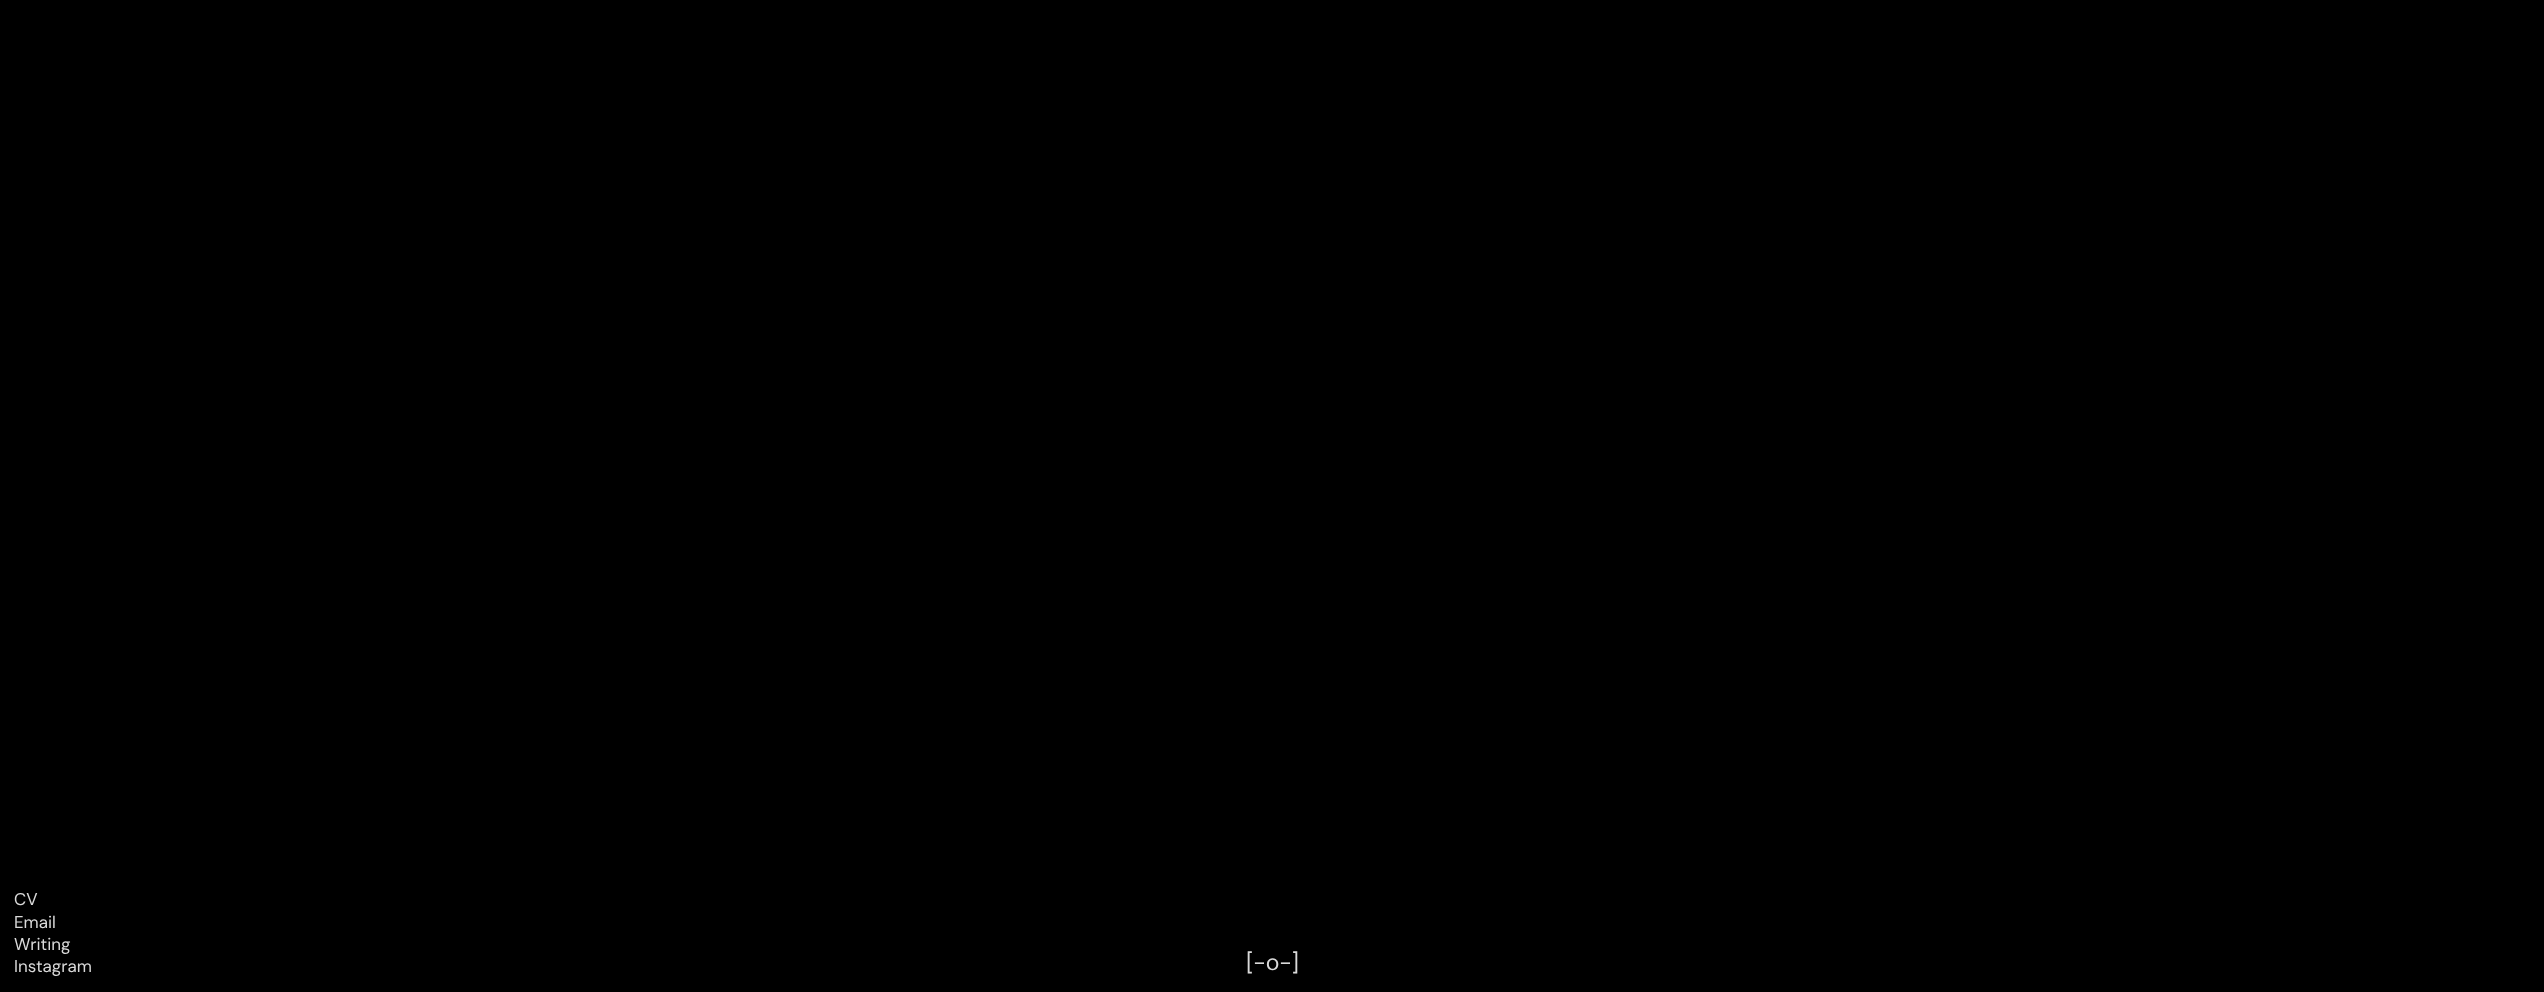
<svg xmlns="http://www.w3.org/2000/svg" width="2544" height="992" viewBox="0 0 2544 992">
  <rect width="100%" height="100%" fill="#000"/>
  <g font-family="DM Sans" font-size="17" fill="#d9d9d9">
    <text x="14" y="905">CV</text>
    <text x="14" y="928">Email</text>
    <text x="14" y="950">Writing</text>
    <text x="14" y="972">Instagram</text>
  </g>
  <text x="1246" y="970" font-family="DM Sans" font-size="23" fill="#d9d9d9">[-o-]</text>
</svg>
